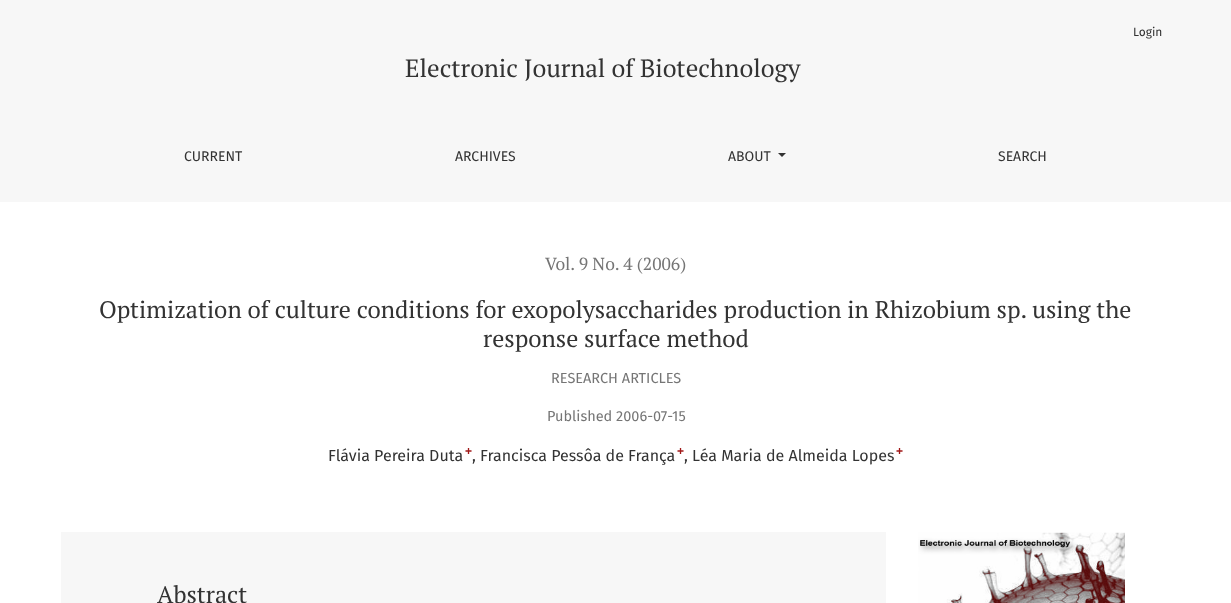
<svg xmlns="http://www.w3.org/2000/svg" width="1231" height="603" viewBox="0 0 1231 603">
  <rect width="100%" height="100%" fill="#fff"/>
  <path d="M0 0h1231v202H0z" fill="#f7f7f7"/>
  <path d="M778 153H786L782 157Z" fill="#333"/>
  <path d="M61 532h825v71H61z" fill="#f7f7f7"/>
  <image x="918" y="532" width="207" height="71" href="img/1.png"/>
  <text x="1133" y="36" font-family="Fira Sans" font-size="12" fill="#333">Login</text>
  <text x="405" y="77" font-family="PT Serif" font-size="25" fill="#333">Electronic Journal of Biotechnology</text>
  <g font-family="Fira Sans" font-size="14" fill="#333">
    <text x="184" y="161">CURRENT</text>
    <text x="455" y="161">ARCHIVES</text>
    <text x="728" y="161">ABOUT</text>
    <text x="998" y="161">SEARCH</text>
  </g>
  <text x="545" y="270" font-family="PT Serif" font-size="17.5" fill="#757575">Vol. 9 No. 4 (2006)</text>
  <g font-family="PT Serif" font-size="24" fill="#333">
    <text x="99" y="318">Optimization of culture conditions for exopolysaccharides production in Rhizobium sp. using the</text>
    <text x="483" y="347">response surface method</text>
  </g>
  <g font-family="Fira Sans" font-size="14.5" fill="#757575">
    <text x="551" y="383">RESEARCH ARTICLES</text>
    <text x="547" y="421">Published 2006-07-15</text>
  </g>
  <text x="328" y="461" font-family="Fira Sans" font-size="16" fill="#333">Flávia Pereira Duta</text>
  <text x="465" y="455" font-family="Liberation Sans" font-size="12" font-weight="bold" fill="#a11919">+</text>
  <text x="472" y="461" font-family="Fira Sans" font-size="16" fill="#333">, Francisca Pessôa de França</text>
  <text x="677" y="455" font-family="Liberation Sans" font-size="12" font-weight="bold" fill="#a11919">+</text>
  <text x="684" y="461" font-family="Fira Sans" font-size="16" fill="#333">, Léa Maria de Almeida Lopes</text>
  <text x="896" y="455" font-family="Liberation Sans" font-size="12" font-weight="bold" fill="#a11919">+</text>
  <text x="157" y="603" font-family="PT Serif" font-size="24" fill="#333">Abstract</text>
</svg>
